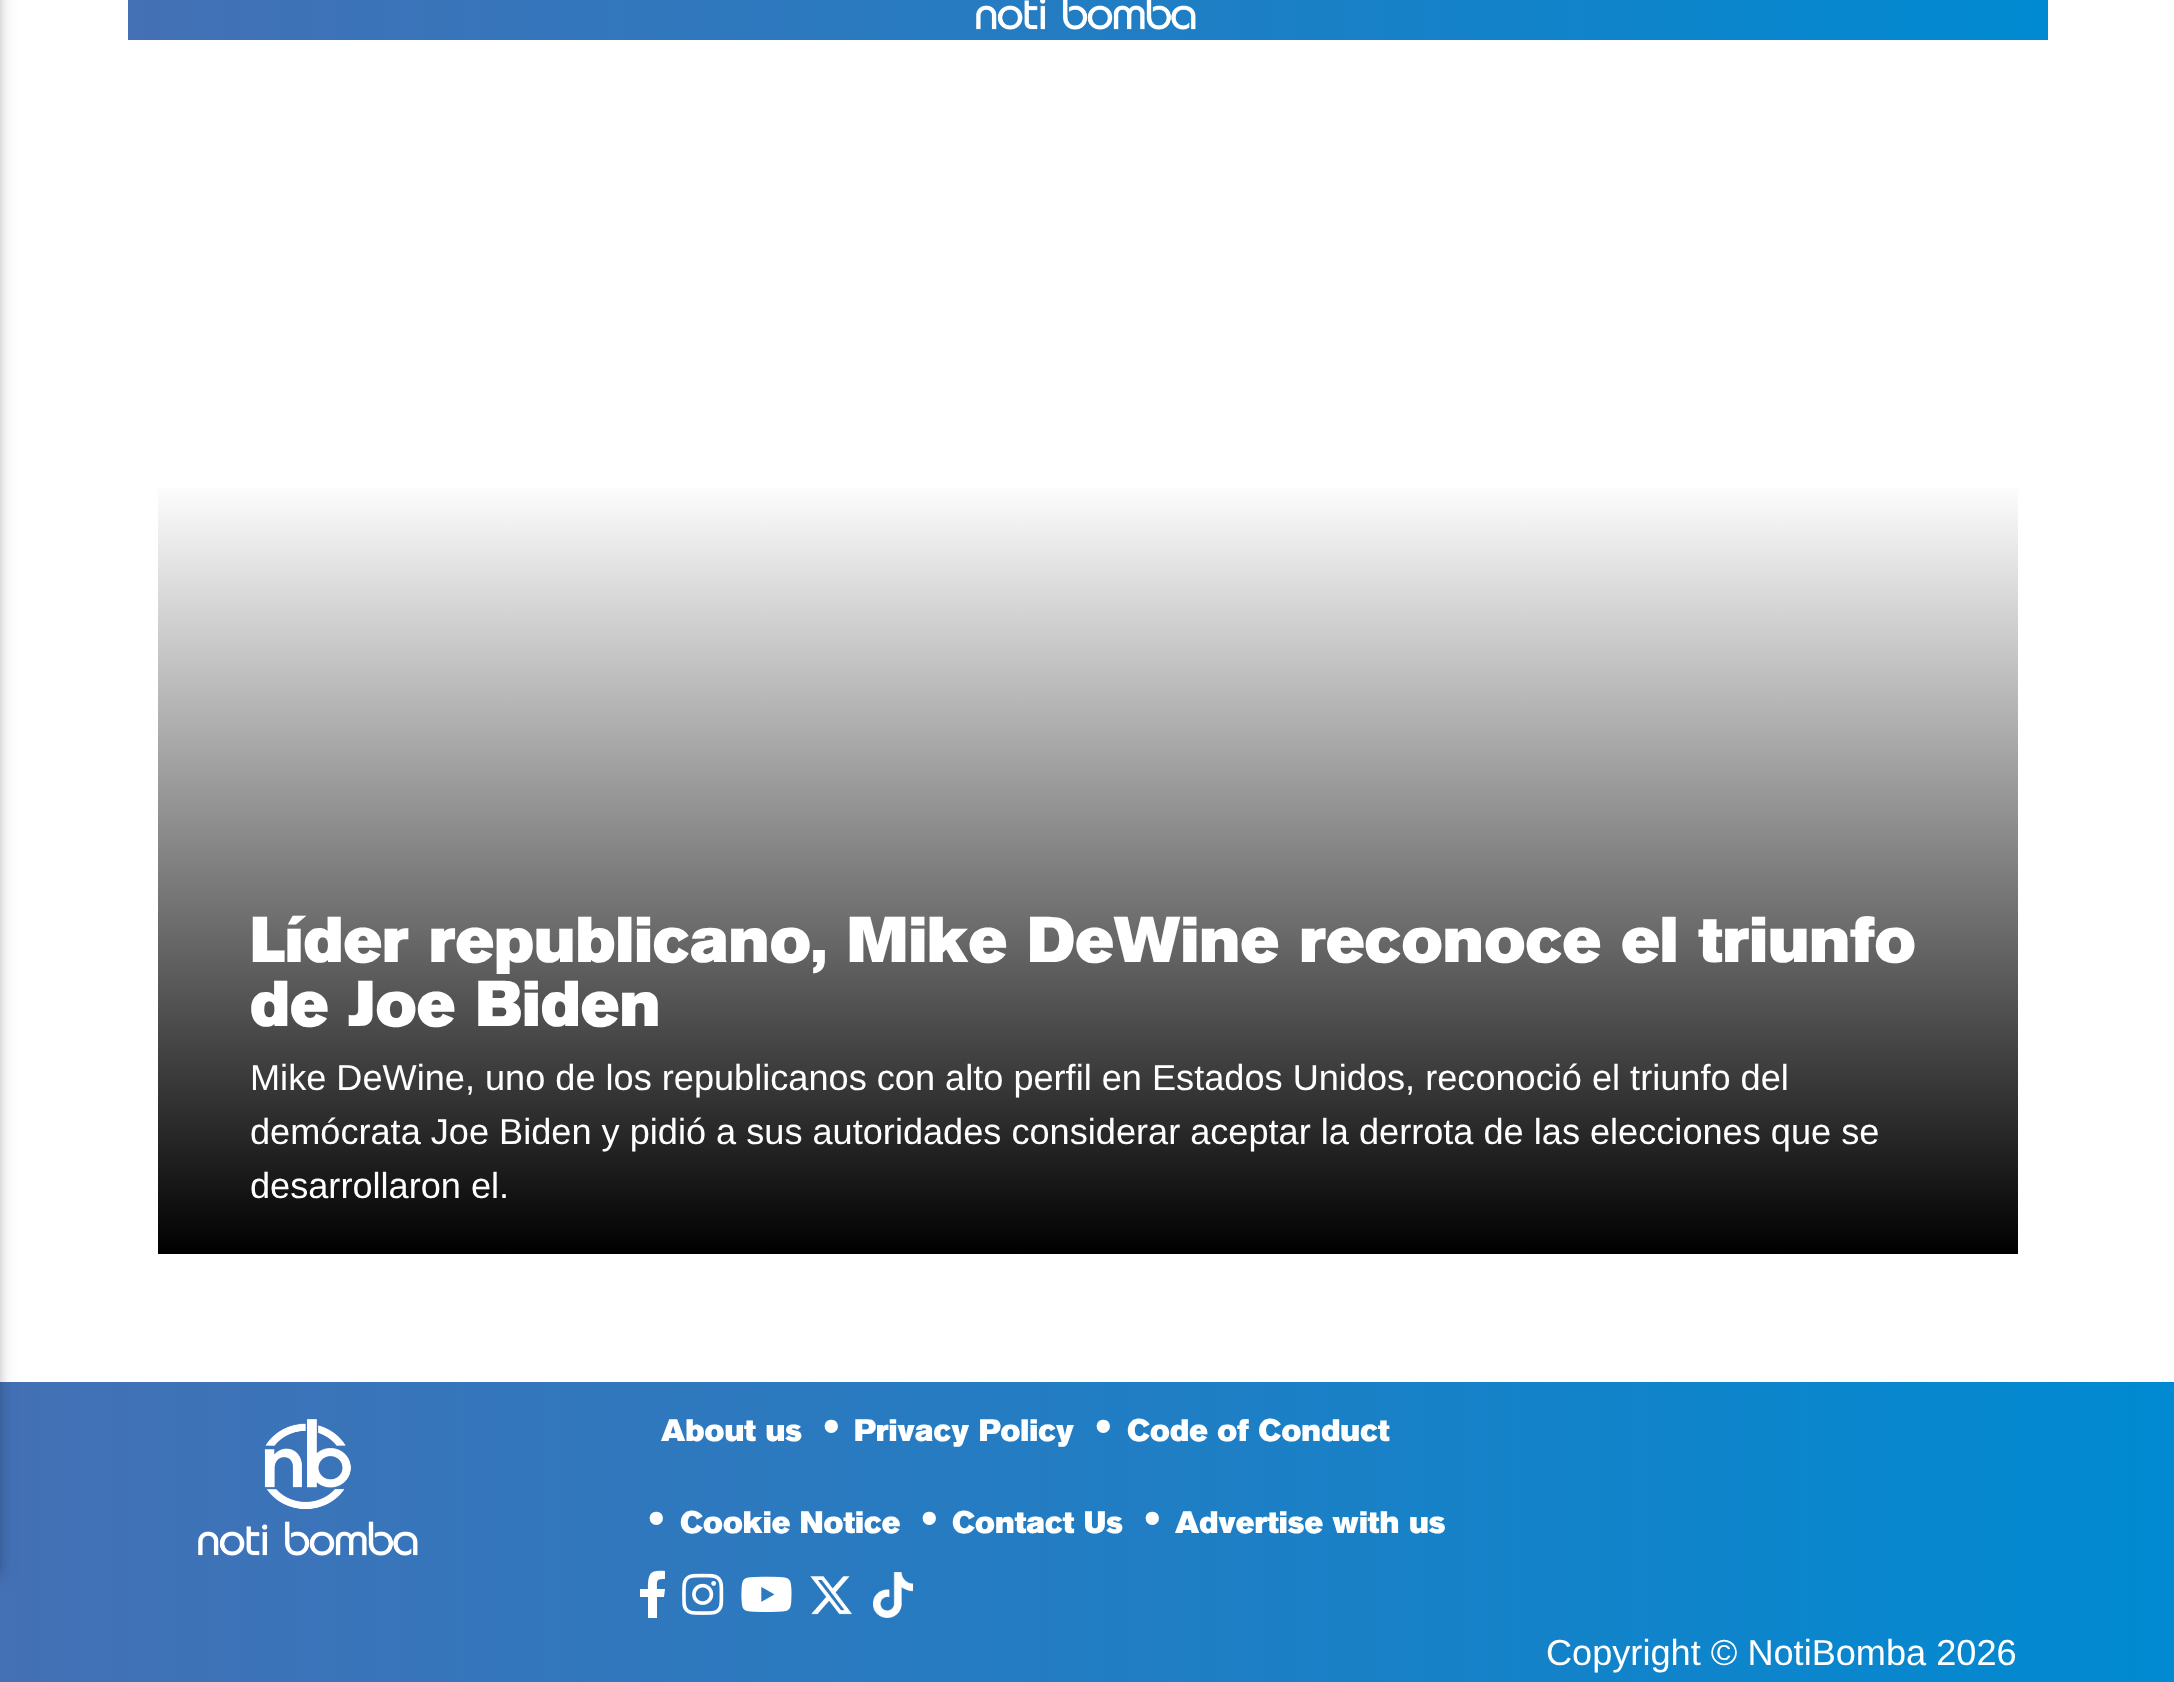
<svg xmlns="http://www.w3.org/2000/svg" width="2174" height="1682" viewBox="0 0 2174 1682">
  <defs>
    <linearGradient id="g1" gradientUnits="userSpaceOnUse" x1="0" y1="1532" x2="2174" y2="1532"><stop offset="0" stop-color="#4470b5"/><stop offset="1" stop-color="#008ad1"/></linearGradient>
    <linearGradient id="g2" gradientUnits="userSpaceOnUse" x1="128" y1="-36" x2="2048" y2="-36"><stop offset="0" stop-color="#4470b5"/><stop offset="1" stop-color="#008ad1"/></linearGradient>
    <linearGradient id="g3" gradientUnits="userSpaceOnUse" x1="1088" y1="1254" x2="1088" y2="480"><stop offset="0" stop-color="#000"/><stop offset="1" stop-color="#fff"/></linearGradient>
  </defs>
  <rect width="100%" height="100%" fill="#fff"/>
  <path d="M0 1382h2174v300H0z" fill="url(#g1)"/>
  <path d="M-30 -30h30v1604H-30z" fill="#0000001f" filter="blur(10px)"/>
  <path d="M-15 -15h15v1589H-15z" fill="#00000029" filter="blur(5px)"/>
  <path d="M128 0h1920v40H128z" fill="url(#g2)"/>
  <image x="976" y="0" width="220" height="30" href="img/1.png"/>
  <path d="M158 488h1860v766H158z" fill="url(#g3)"/>
  <image x="198" y="1419" width="220" height="137" href="img/2.png"/>
  <path d="M664 1597H657V1618H648V1597H640V1589H648C648 1573 650 1570 665 1571V1579C656 1579 657 1580 657 1589H665Z" fill="#fff"/>
  <image x="682" y="1573" width="42" height="42" href="img/3.png"/>
  <image x="741" y="1576" width="51" height="36" href="img/4.png"/>
  <image x="810" y="1576" width="42" height="39" href="img/5.png"/>
  <image x="873" y="1572" width="41" height="46" href="img/6.png"/>
  <g font-family="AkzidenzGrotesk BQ" font-size="64" font-weight="500" fill="#fff">
    <text x="250" y="962">Líder republicano, Mike DeWine reconoce el triunfo</text>
    <text x="250" y="1026">de Joe Biden</text>
  </g>
  <g font-family="Liberation Sans" font-size="36.15" fill="#fff">
    <text x="250" y="1090">Mike DeWine, uno de los republicanos con alto perfil en Estados Unidos, reconoció el triunfo del</text>
    <text x="250" y="1144">demócrata Joe Biden y pidió a sus autoridades considerar aceptar la derrota de las elecciones que se</text>
    <text x="250" y="1198">desarrollaron el.</text>
  </g>
  <text x="661" y="1441" font-family="AkzidenzGrotesk BQ" font-size="30.75" font-weight="500" fill="#fff">About us</text>
  <text x="822" y="1435" font-family="Liberation Serif" font-size="30.75" fill="#fff">●</text>
  <text x="854" y="1441" font-family="AkzidenzGrotesk BQ" font-size="30.75" font-weight="500" fill="#fff">Privacy Policy</text>
  <text x="1094" y="1435" font-family="Liberation Serif" font-size="30.75" fill="#fff">●</text>
  <text x="1127" y="1441" font-family="AkzidenzGrotesk BQ" font-size="30.75" font-weight="500" fill="#fff">Code of Conduct</text>
  <text x="647" y="1527" font-family="Liberation Serif" font-size="30.75" fill="#fff">●</text>
  <text x="680" y="1533" font-family="AkzidenzGrotesk BQ" font-size="30.75" font-weight="500" fill="#fff">Cookie Notice</text>
  <text x="920" y="1527" font-family="Liberation Serif" font-size="30.75" fill="#fff">●</text>
  <text x="952" y="1533" font-family="AkzidenzGrotesk BQ" font-size="30.75" font-weight="500" fill="#fff">Contact Us</text>
  <text x="1143" y="1527" font-family="Liberation Serif" font-size="30.75" fill="#fff">●</text>
  <text x="1175" y="1533" font-family="AkzidenzGrotesk BQ" font-size="30.75" font-weight="500" fill="#fff">Advertise with us</text>
  <text x="1546" y="1665" font-family="Liberation Sans" font-size="36.15" fill="#fff">Copyright © NotiBomba 2026</text>
</svg>
